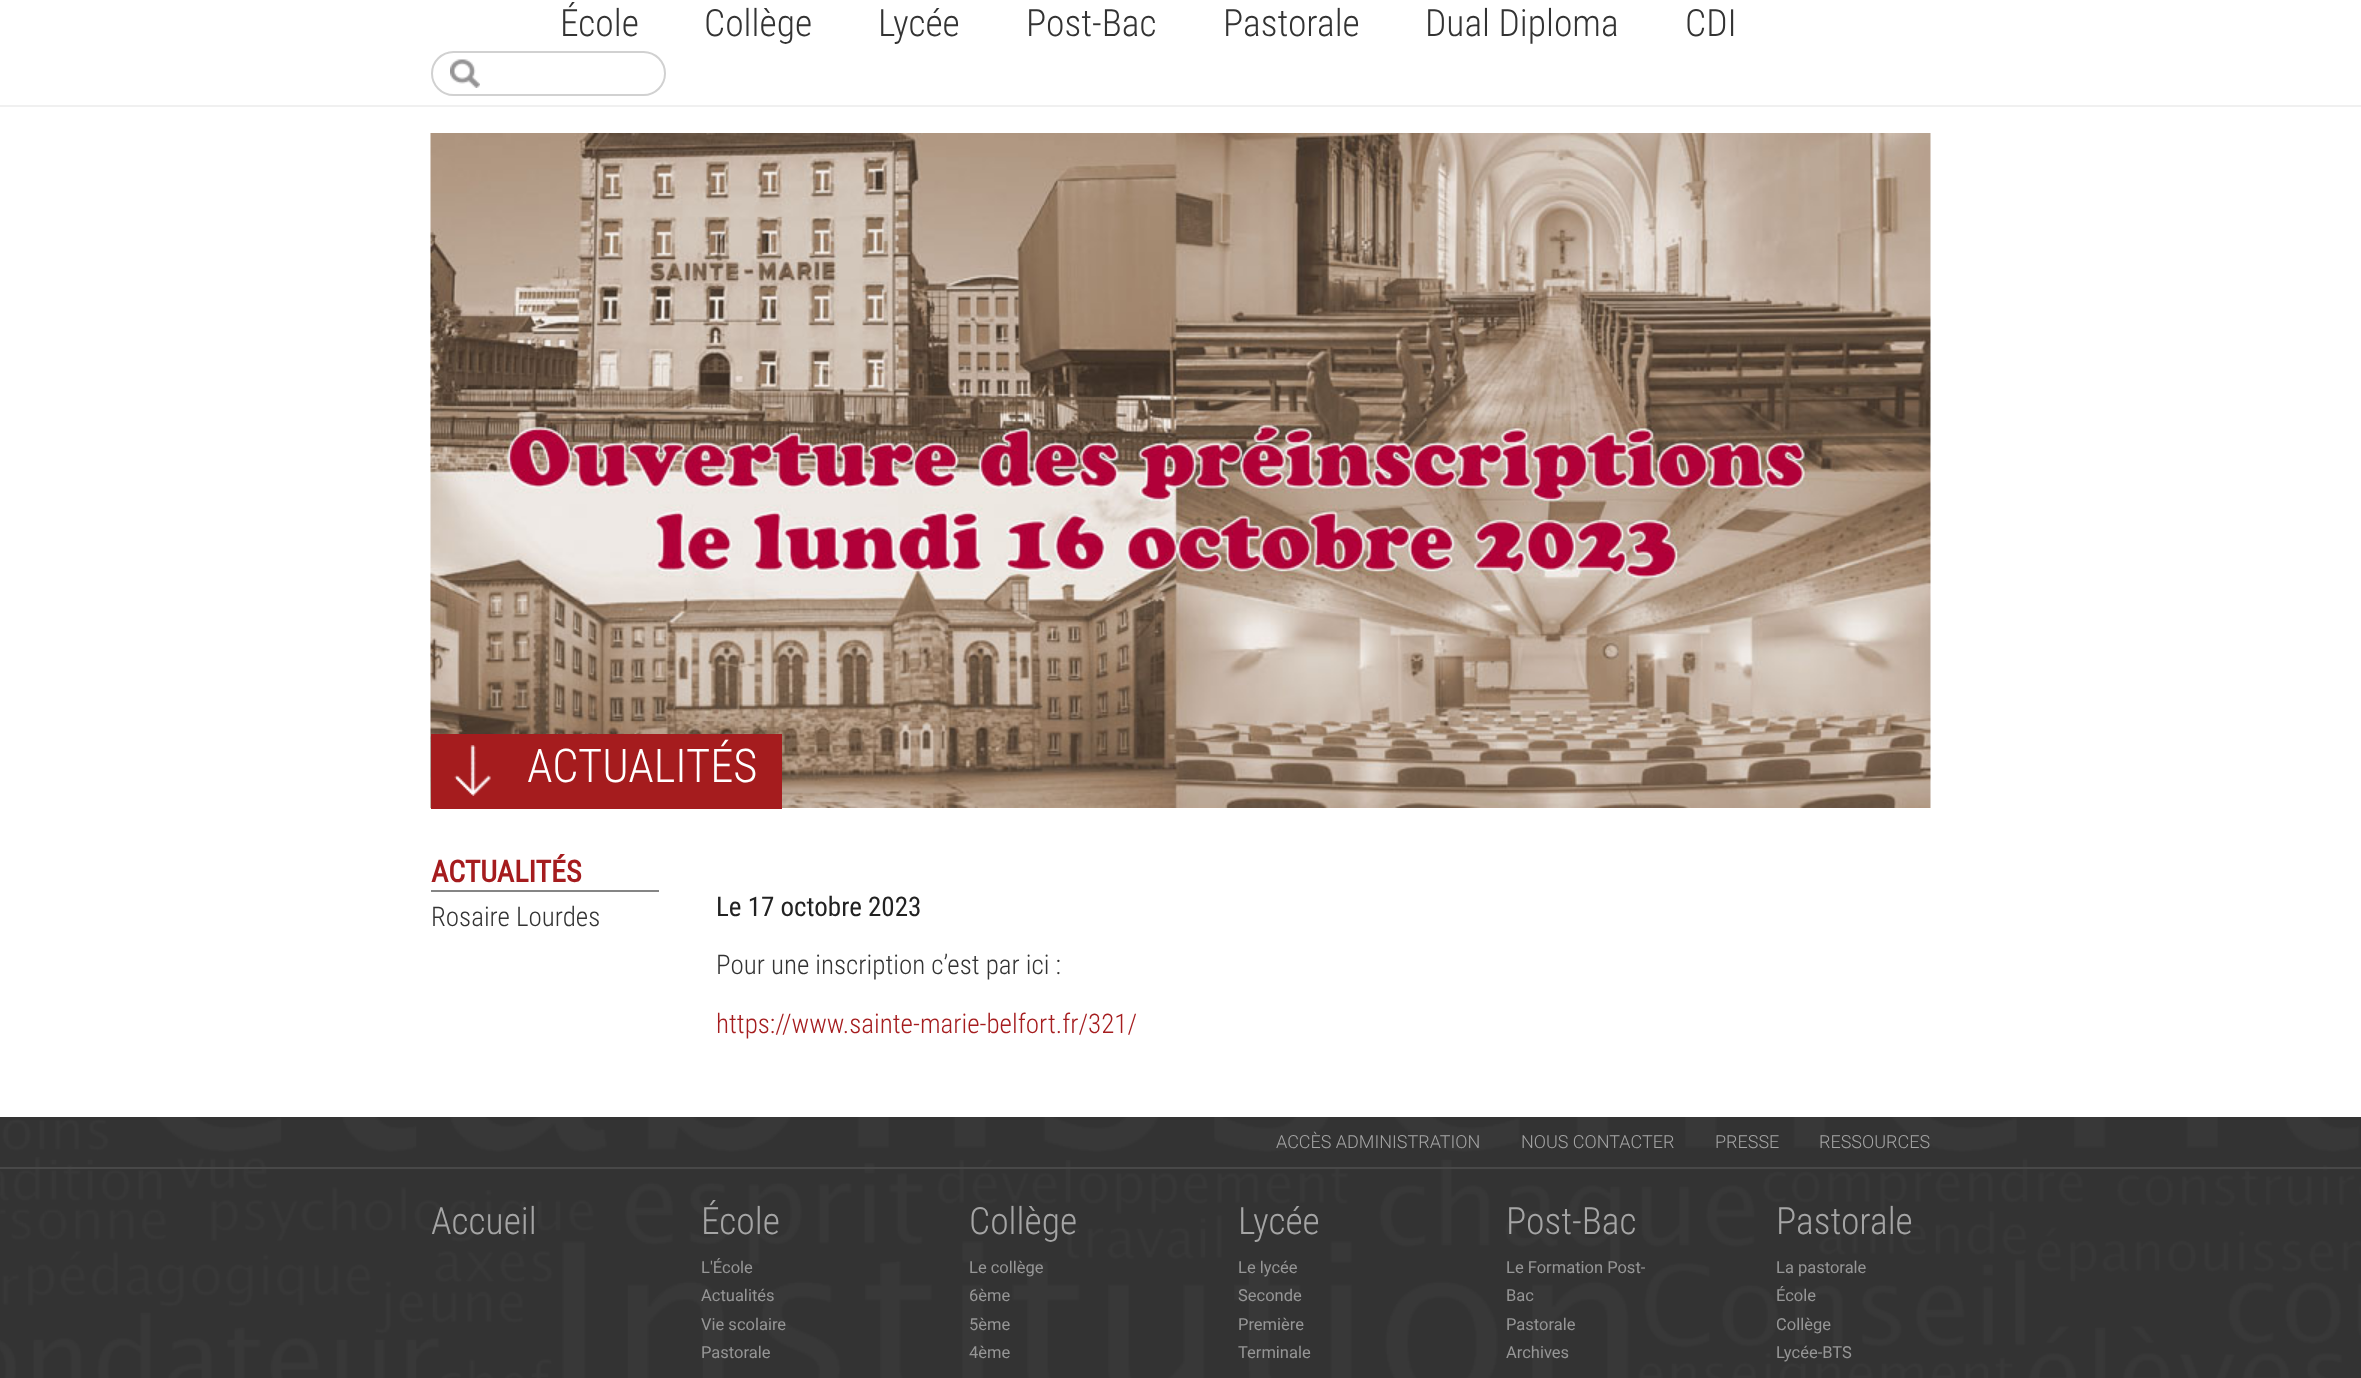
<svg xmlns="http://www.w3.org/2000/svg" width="2361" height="1378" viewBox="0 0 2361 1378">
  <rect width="100%" height="100%" fill="#fff"/>
  <path d="M0 105h2361v2H0z" fill="#f0f0f0"/>
  <image x="450" y="59" width="30" height="29" href="img/1.png"/>
  <rect x="432" y="52" width="233" height="43" rx="21.5" fill="none" stroke="#d1d1d1" stroke-width="2"/>
  <image x="430" y="133" width="1501" height="675" href="img/2.png"/>
  <path d="M431 734h351v75H431z" fill="#a51c1e"/>
  <image x="454" y="745" width="37" height="51" href="img/3.png"/>
  <path d="M431 890h228v2H431z" fill="#858585"/>
  <image x="0" y="1117" width="2361" height="261" href="img/4.png"/>
  <path d="M0 1167h2361v2H0z" fill="#484848"/>
  <g font-family="Roboto Condensed" font-size="37.5" font-weight="300" fill="#333">
    <text x="560" y="36">École</text>
    <text x="704" y="36">Collège</text>
    <text x="878" y="36">Lycée</text>
    <text x="1026" y="36">Post-Bac</text>
    <text x="1223" y="36">Pastorale</text>
    <text x="1425" y="36">Dual Diploma</text>
    <text x="1685" y="36">CDI</text>
  </g>
  <text x="527" y="782" font-family="Roboto Condensed" font-size="46.5" font-weight="300" fill="#fff">ACTUALITÉS</text>
  <text x="431" y="882" font-family="Roboto Condensed" font-size="30" font-weight="bold" fill="#a51c1e">ACTUALITÉS</text>
  <text x="431" y="926" font-family="Roboto Condensed" font-size="27" font-weight="300" fill="#333">Rosaire Lourdes</text>
  <text x="716" y="916" font-family="Roboto Condensed" font-size="27" fill="#222">Le 17 octobre 2023</text>
  <text x="716" y="974" font-family="Roboto Condensed" font-size="27" font-weight="300" fill="#333">Pour une inscription c’est par ici :</text>
  <text x="716" y="1033" font-family="Roboto Condensed" font-size="27" font-weight="300" fill="#a51c1e">https://www.sainte-marie-belfort.fr/321/</text>
  <g font-family="Roboto" font-size="18" font-weight="300" fill="#a5a5a5">
    <text x="1276" y="1148">ACCÈS ADMINISTRATION</text>
    <text x="1521" y="1148">NOUS CONTACTER</text>
    <text x="1715" y="1148">PRESSE</text>
    <text x="1819" y="1148">RESSOURCES</text>
  </g>
  <g font-family="Roboto Condensed" font-size="37.5" font-weight="300" fill="#a5a5a5">
    <text x="431" y="1234">Accueil</text>
    <text x="701" y="1234">École</text>
  </g>
  <g font-family="Roboto" font-size="16.5" fill="#969696">
    <text x="701" y="1273">L'École</text>
    <text x="701" y="1301">Actualités</text>
    <text x="701" y="1330">Vie scolaire</text>
    <text x="701" y="1358">Pastorale</text>
  </g>
  <text x="969" y="1234" font-family="Roboto Condensed" font-size="37.5" font-weight="300" fill="#a5a5a5">Collège</text>
  <g font-family="Roboto" font-size="16.5" fill="#969696">
    <text x="969" y="1273">Le collège</text>
    <text x="969" y="1301">6ème</text>
    <text x="969" y="1330">5ème</text>
    <text x="969" y="1358">4ème</text>
  </g>
  <text x="1238" y="1234" font-family="Roboto Condensed" font-size="37.5" font-weight="300" fill="#a5a5a5">Lycée</text>
  <g font-family="Roboto" font-size="16.5" fill="#969696">
    <text x="1238" y="1273">Le lycée</text>
    <text x="1238" y="1301">Seconde</text>
    <text x="1238" y="1330">Première</text>
    <text x="1238" y="1358">Terminale</text>
  </g>
  <text x="1506" y="1234" font-family="Roboto Condensed" font-size="37.5" font-weight="300" fill="#a5a5a5">Post-Bac</text>
  <g font-family="Roboto" font-size="16.5" fill="#969696">
    <text x="1506" y="1273">Le Formation Post-</text>
    <text x="1506" y="1301">Bac</text>
    <text x="1506" y="1330">Pastorale</text>
    <text x="1506" y="1358">Archives</text>
  </g>
  <text x="1776" y="1234" font-family="Roboto Condensed" font-size="37.5" font-weight="300" fill="#a5a5a5">Pastorale</text>
  <g font-family="Roboto" font-size="16.5" fill="#969696">
    <text x="1776" y="1273">La pastorale</text>
    <text x="1776" y="1301">École</text>
    <text x="1776" y="1330">Collège</text>
    <text x="1776" y="1358">Lycée-BTS</text>
  </g>
</svg>
